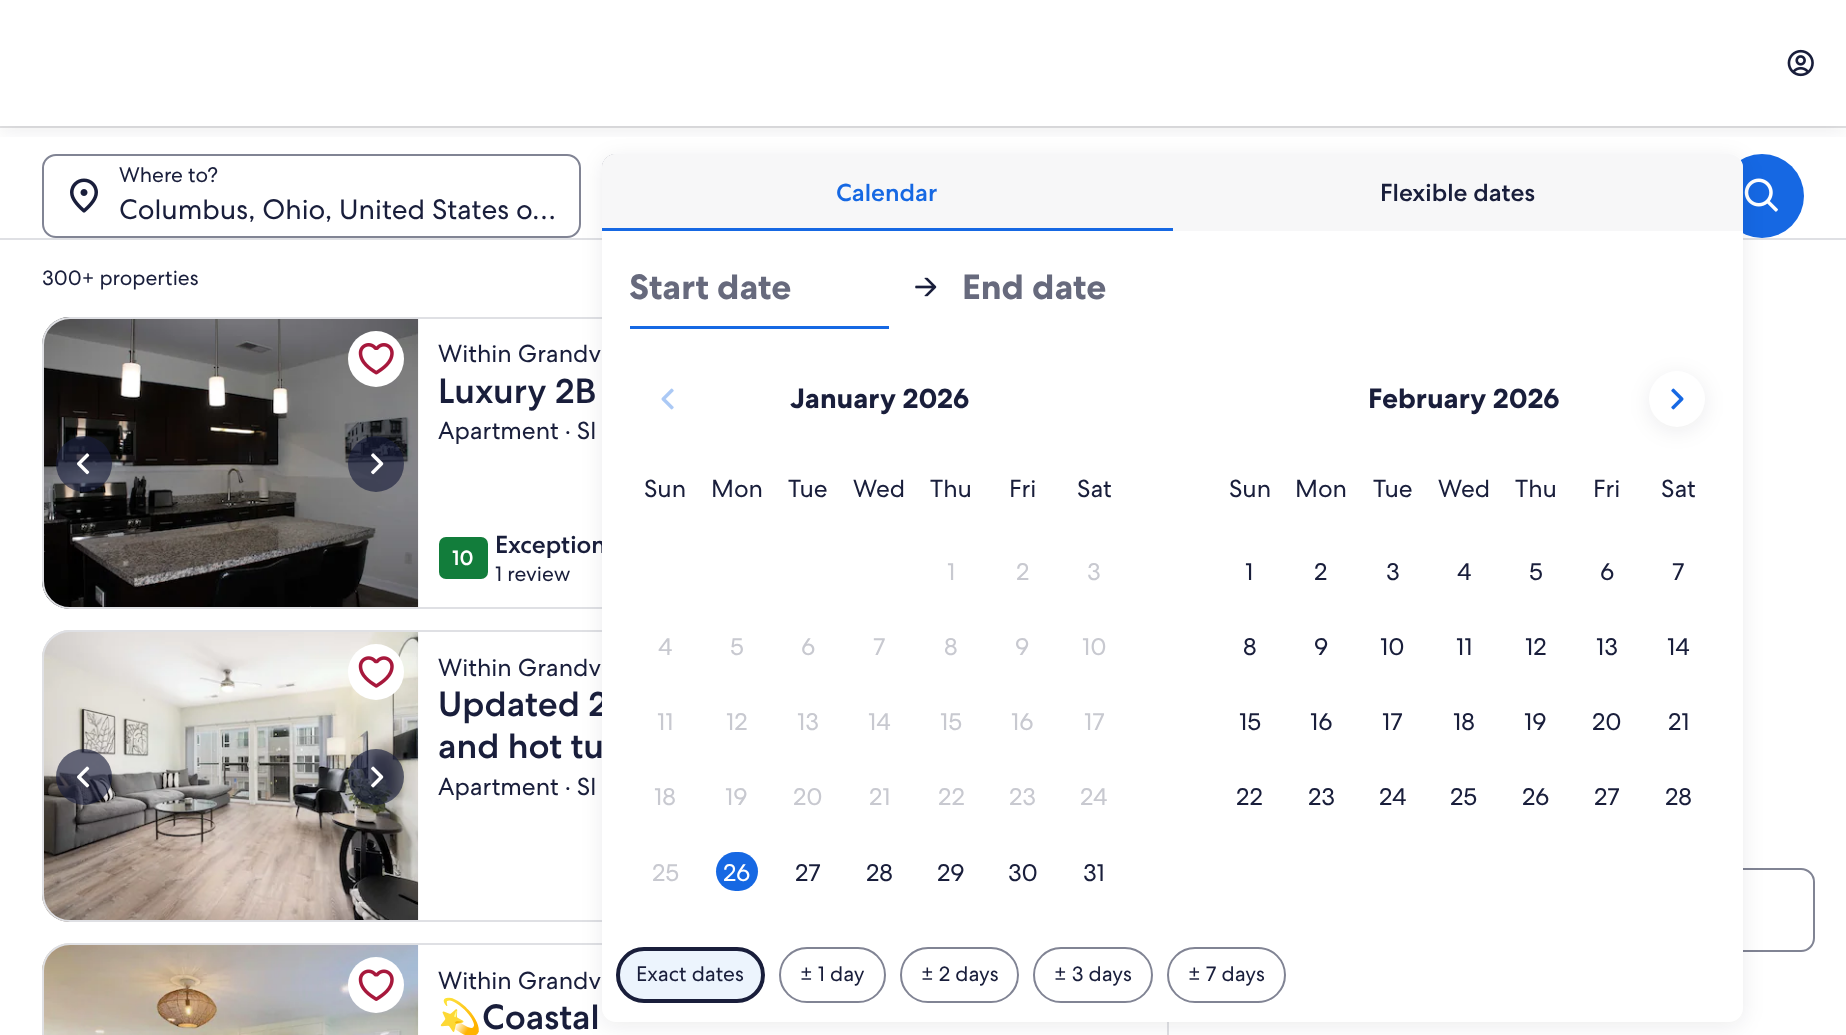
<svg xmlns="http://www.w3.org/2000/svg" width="1846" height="1035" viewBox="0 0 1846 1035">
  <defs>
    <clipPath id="clip1"><path d="M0 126h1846v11H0z"/></clipPath>
  </defs>
  <rect width="100%" height="100%" fill="#fff"/>
  <rect x="43" y="155" width="537" height="82" rx="13" fill="none" stroke="#818494" stroke-width="2"/>
  <rect x="603" y="155" width="535" height="82" rx="13" fill="none" stroke="#818494" stroke-width="2"/>
  <circle cx="1762" cy="196" r="42" fill="#1668e3"/>
  <image x="1744" y="178" width="34" height="34" href="img/6.png"/>
  <path d="M0 238h1846v2H0z" fill="#dfe0e4"/>
  <image x="42" y="317" width="377" height="292" href="img/7.png"/>
  <circle cx="84" cy="464" r="28" fill="#191e3ba3"/>
  <image x="77" y="453" width="13" height="22" href="img/8.png"/>
  <circle cx="376" cy="464" r="28" fill="#191e3ba3"/>
  <image x="371" y="453" width="13" height="22" href="img/9.png"/>
  <circle cx="376" cy="359" r="28" fill="#fff"/>
  <image x="358" y="343" width="36" height="32" href="img/10.png"/>
  <rect x="439" y="537" width="49" height="42" rx="7" fill="#127d3b"/>
  <rect x="43" y="318" width="1125" height="290" rx="27" fill="none" stroke="#dfe0e4" stroke-width="2"/>
  <image x="42" y="630" width="377" height="292" href="img/11.png"/>
  <circle cx="84" cy="777" r="28" fill="#191e3ba3"/>
  <image x="77" y="766" width="13" height="22" href="img/12.png"/>
  <circle cx="376" cy="777" r="28" fill="#191e3ba3"/>
  <image x="371" y="766" width="13" height="22" href="img/13.png"/>
  <circle cx="376" cy="672" r="28" fill="#fff"/>
  <image x="358" y="656" width="36" height="32" href="img/14.png"/>
  <rect x="43" y="631" width="1125" height="290" rx="27" fill="none" stroke="#dfe0e4" stroke-width="2"/>
  <image x="42" y="943" width="377" height="92" href="img/15.png"/>
  <circle cx="376" cy="985" r="28" fill="#fff"/>
  <image x="358" y="969" width="36" height="32" href="img/16.png"/>
  <rect x="43" y="944" width="1125" height="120" rx="27" fill="none" stroke="#dfe0e4" stroke-width="2"/>
  <rect x="1244" y="869" width="570" height="82" rx="13" fill="none" stroke="#818494" stroke-width="2"/>
  <rect x="602" y="158" width="1141" height="868" rx="14" fill="#0c0e1c14" filter="blur(10.5px)"/>
  <path d="M0 126h1846v2H0z" fill="#e2e2e4"/>
  <image x="70" y="178" width="28" height="35" href="img/2.png"/>
  <text x="119" y="182" font-family="'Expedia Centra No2'" font-size="21" fill="#191e3b">Where to?</text>
  <text x="119" y="219" font-family="'Expedia Centra No2'" font-size="28" fill="#191e3b">Columbus, Ohio, United States o…</text>
  <text x="42" y="285" font-family="'Expedia Centra No2'" font-size="21" fill="#191e3b">300+ properties</text>
  <text x="438" y="362" font-family="'Expedia Centra No2'" font-size="24.5" fill="#191e3b">Within Grandv</text>
  <text x="438" y="403" font-family="'Expedia Centra No2'" font-size="35" font-weight="500" fill="#191e3b">Luxury 2B</text>
  <text x="438" y="439" font-family="'Expedia Centra No2'" font-size="24.5" fill="#191e3b">Apartment · Sl</text>
  <text x="452" y="565" font-family="'Expedia Centra No2'" font-size="21" font-weight="500" fill="#fff">10</text>
  <text x="495" y="553" font-family="'Expedia Centra No2'" font-size="24.5" font-weight="500" fill="#191e3b">Exception</text>
  <text x="495" y="581" font-family="'Expedia Centra No2'" font-size="21" fill="#191e3b">1 review</text>
  <text x="438" y="676" font-family="'Expedia Centra No2'" font-size="24.5" fill="#191e3b">Within Grandv</text>
  <text x="438" y="716" font-family="'Expedia Centra No2'" font-size="35" font-weight="500" fill="#191e3b">Updated 2</text>
  <rect x="602" y="154" width="1141" height="868" rx="14" fill="#fff"/>
  <path d="M616 154H1729C1736.5 154 1743 160.5 1743 168V231H602V168C602 160.5 608.5 154 616 154Z" fill="#f7f7f8"/>
  <g clip-path="url(#clip1)">
    <path d="M0 4h1846v126H0z" fill="#0c0e1c14" filter="blur(10.5px)"/>
  </g>
  <image x="1787" y="49" width="27" height="28" href="img/1.png"/>
  <rect x="1168" y="948" width="117" height="54" rx="27" fill="none" stroke="#818494" stroke-width="2"/>
  <text x="1188" y="981" font-family="'Expedia Centra No2'" font-size="21" fill="#191e3b">± 7 days</text>
  <rect x="1034" y="948" width="118" height="54" rx="27" fill="none" stroke="#818494" stroke-width="2"/>
  <text x="1054" y="981" font-family="'Expedia Centra No2'" font-size="21" fill="#191e3b">± 3 days</text>
  <rect x="901" y="948" width="117" height="54" rx="27" fill="none" stroke="#818494" stroke-width="2"/>
  <text x="921" y="981" font-family="'Expedia Centra No2'" font-size="21" fill="#191e3b">± 2 days</text>
  <rect x="780" y="948" width="105" height="54" rx="27" fill="none" stroke="#818494" stroke-width="2"/>
  <text x="800" y="981" font-family="'Expedia Centra No2'" font-size="21" fill="#191e3b">± 1 day</text>
  <rect x="618" y="949" width="145" height="52" rx="26" fill="#ecf4fd" stroke="#191e3b" stroke-width="4"/>
  <text x="636" y="981" font-family="'Expedia Centra No2'" font-size="21" fill="#191e3b">Exact dates</text>
  <text x="962" y="299" font-family="'Expedia Centra No2'" font-size="35" font-weight="bold" fill="#676a7d">End date</text>
  <image x="915" y="277" width="22" height="20" href="img/3.png"/>
  <text x="629" y="299" font-family="'Expedia Centra No2'" font-size="35" font-weight="bold" fill="#676a7d">Start date</text>
  <path d="M630 326h259v3H630z" fill="#1668e3"/>
  <rect x="1649" y="375" width="56" height="56" rx="28" fill="#0c0e1c14" filter="blur(10.5px)"/>
  <circle cx="1677" cy="399" r="28" fill="#fff"/>
  <image x="1671" y="388" width="13" height="22" href="img/4.png"/>
  <image x="661" y="388" width="13" height="22" href="img/5.png"/>
  <g font-family="'Expedia Centra No2'" font-size="24.5" fill="#191e3b">
    <text x="1665" y="805">28</text>
    <text x="1594" y="805">27</text>
    <text x="1522" y="805">26</text>
    <text x="1450" y="805">25</text>
    <text x="1379" y="805">24</text>
    <text x="1308" y="805">23</text>
    <text x="1236" y="805">22</text>
    <text x="1668" y="730">21</text>
    <text x="1592" y="730">20</text>
    <text x="1524" y="730">19</text>
    <text x="1453" y="730">18</text>
    <text x="1382" y="730">17</text>
    <text x="1310" y="730">16</text>
    <text x="1239" y="730">15</text>
    <text x="1667" y="655">14</text>
    <text x="1596" y="655">13</text>
    <text x="1525" y="655">12</text>
    <text x="1456" y="655">11</text>
    <text x="1380" y="655">10</text>
    <text x="1314" y="655">9</text>
    <text x="1243" y="655">8</text>
    <text x="1672" y="580">7</text>
    <text x="1600" y="580">6</text>
    <text x="1529" y="580">5</text>
    <text x="1457" y="580">4</text>
    <text x="1386" y="580">3</text>
    <text x="1314" y="580">2</text>
    <text x="1245" y="580">1</text>
    <text x="1083" y="881">31</text>
    <text x="1008" y="881">30</text>
    <text x="937" y="881">29</text>
    <text x="866" y="881">28</text>
    <text x="795" y="881">27</text>
  </g>
  <rect x="716" y="852" width="42" height="39" rx="19.5" fill="#1668e3"/>
  <text x="723" y="881" font-family="'Expedia Centra No2'" font-size="24.5" fill="#fff">26</text>
  <g font-family="'Expedia Centra No2'" font-size="24.5" fill="#c8c9d0">
    <text x="652" y="881">25</text>
    <text x="1080" y="805">24</text>
    <text x="1009" y="805">23</text>
    <text x="938" y="805">22</text>
    <text x="869" y="805">21</text>
    <text x="793" y="805">20</text>
    <text x="725" y="805">19</text>
    <text x="654" y="805">18</text>
    <text x="1084" y="730">17</text>
    <text x="1011" y="730">16</text>
    <text x="940" y="730">15</text>
    <text x="868" y="730">14</text>
    <text x="797" y="730">13</text>
    <text x="726" y="730">12</text>
    <text x="657" y="730">11</text>
    <text x="1082" y="655">10</text>
    <text x="1015" y="655">9</text>
    <text x="944" y="655">8</text>
    <text x="873" y="655">7</text>
    <text x="801" y="655">6</text>
    <text x="730" y="655">5</text>
    <text x="658" y="655">4</text>
    <text x="1087" y="580">3</text>
    <text x="1016" y="580">2</text>
    <text x="947" y="580">1</text>
  </g>
  <g font-family="'Expedia Centra No2'" font-size="24.5" fill="#191e3b">
    <text x="1661" y="497">Sat</text>
    <text x="1593" y="497">Fri</text>
    <text x="1515" y="497">Thu</text>
    <text x="1438" y="497">Wed</text>
    <text x="1373" y="497">Tue</text>
    <text x="1295" y="497">Mon</text>
    <text x="1229" y="497">Sun</text>
  </g>
  <text x="1368" y="408" font-family="'Expedia Centra No2'" font-size="28" font-weight="bold" fill="#191e3b">February 2026</text>
  <g font-family="'Expedia Centra No2'" font-size="24.5" fill="#191e3b">
    <text x="1077" y="497">Sat</text>
    <text x="1009" y="497">Fri</text>
    <text x="930" y="497">Thu</text>
    <text x="853" y="497">Wed</text>
    <text x="788" y="497">Tue</text>
    <text x="711" y="497">Mon</text>
    <text x="644" y="497">Sun</text>
  </g>
  <text x="790" y="408" font-family="'Expedia Centra No2'" font-size="28" font-weight="bold" fill="#191e3b">January 2026</text>
  <path d="M602 228h571v3H602z" fill="#1668e3"/>
  <text x="1380" y="201" font-family="'Expedia Centra No2'" font-size="24.5" font-weight="500" fill="#191e3b">Flexible dates</text>
  <text x="836" y="201" font-family="'Expedia Centra No2'" font-size="24.5" font-weight="500" fill="#1668e3">Calendar</text>
  <text x="438" y="758" font-family="'Expedia Centra No2'" font-size="35" font-weight="500" fill="#191e3b">and hot tu</text>
  <g font-family="'Expedia Centra No2'" font-size="24.5" fill="#191e3b">
    <text x="438" y="795">Apartment · Sl</text>
    <text x="438" y="989">Within Grandv</text>
  </g>
  <text x="438" y="1029" font-family="Noto Color Emoji" font-size="35" fill="#191e3b">💫</text>
  <text x="482" y="1029" font-family="'Expedia Centra No2'" font-size="35" font-weight="500" fill="#191e3b">Coastal</text>
</svg>
